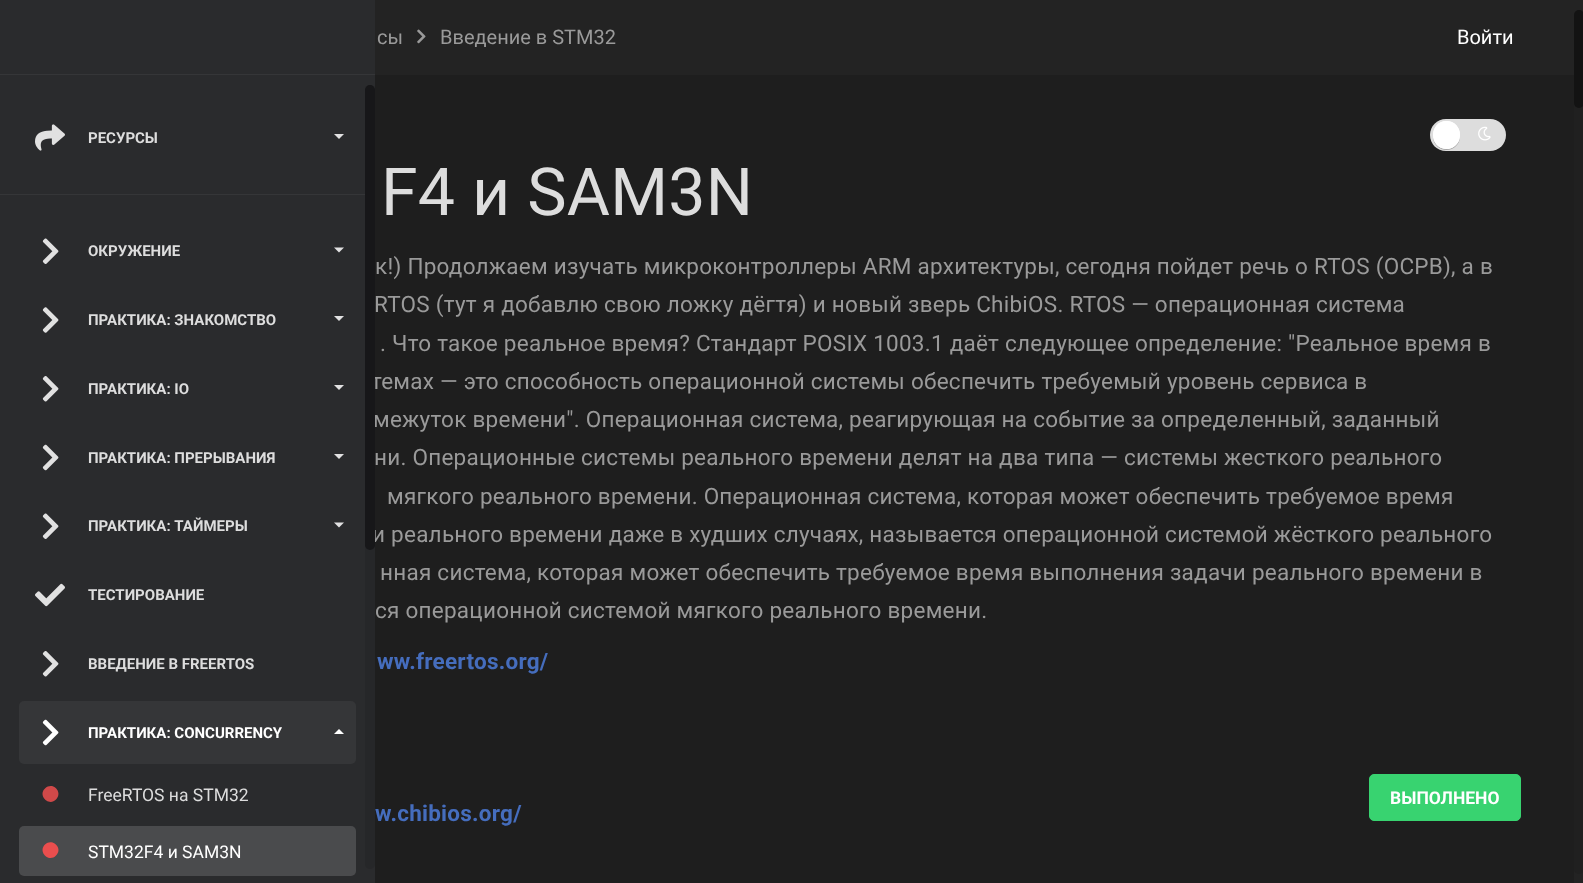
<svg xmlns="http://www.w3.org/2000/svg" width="1583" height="883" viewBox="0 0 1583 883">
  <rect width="100%" height="100%" fill="#232323"/>
  <image x="417" y="29" width="9" height="15" href="img/8.png"/>
  <path d="M375 75h1199v808H375z" fill="#1e1e1e"/>
  <path d="M1446 119V151C1437 151 1430 144 1430 135C1430 126 1437 119 1446 119Z" fill="#ddd"/>
  <path d="M1446 119H1490C1499 119 1506 126 1506 135C1506 144 1499 151 1490 151H1446Z" fill="#ddd"/>
  <image x="1478" y="126" width="13" height="15" href="img/9.png"/>
  <rect x="1433" y="123" width="27" height="27" rx="13.5" fill="#00000040" filter="blur(0.5px)"/>
  <rect x="1433" y="121" width="27" height="28" rx="13.5" fill="#fff"/>
  <path d="M1446.5 121C1429 121 1428.5 148.5 1446.5 149C1449 149 1451.5 148.5 1453.5 147C1465 140 1460.5 121 1446.5 121Z" fill="#fff"/>
  <rect x="1369.5" y="774.5" width="151" height="46" rx="4.5" fill="#38d370" stroke="#38d370"/>
  <rect x="1574" y="10" width="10" height="864" rx="5" fill="#202020"/>
  <rect x="1574" y="10" width="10" height="98" rx="5" fill="#131313"/>
  <g font-family="Roboto" font-size="20" fill="#9a9a9a">
    <text x="377" y="44">сы</text>
    <text x="440" y="44">Введение в STM32</text>
  </g>
  <text x="1457" y="44" font-family="Roboto" font-size="20" fill="#fff">Войти</text>
  <text x="381" y="215" font-family="Roboto" font-size="66.25" letter-spacing="0.25" fill="#ddd">F4 и SAM3N</text>
  <g font-family="Roboto" font-size="22.5" letter-spacing="0.25" fill="#9a9a9a">
    <text x="375" y="274">к!) Продолжаем изучать микроконтроллеры ARM архитектуры, сегодня пойдет речь о RTOS (OCPB), а в</text>
    <text x="374" y="312">RTOS (тут я добавлю свою ложку дёгтя) и новый зверь ChibiOS. RTOS — операционная система</text>
    <text x="380" y="351">. Что такое реальное время? Стандарт POSIX 1003.1 даёт следующее определение: "Реальное время в</text>
    <text x="371" y="389">темах — это способность операционной системы обеспечить требуемый уровень сервиса в</text>
    <text x="373" y="427">межуток времени". Операционная система, реагирующая на событие за определенный, заданный</text>
    <text x="374" y="465">ни. Операционные системы реального времени делят на два типа — системы жесткого реального</text>
    <text x="387" y="504">мягкого реального времени. Операционная система, которая может обеспечить требуемое время</text>
    <text x="372" y="542">и реального времени даже в худших случаях, называется операционной системой жёсткого реального</text>
  </g>
  <path d="M0 0h375v883H0z" fill="#2a2b2d"/>
  <rect x="365" y="85" width="10" height="784" rx="5" fill="#262729"/>
  <rect x="365" y="85" width="10" height="465" rx="5" fill="#171719"/>
  <rect x="19" y="826" width="337" height="50" rx="5" fill="#4a4b4d"/>
  <text x="88" y="858" font-family="Roboto" font-size="17.5" fill="#fff">STM32F4 и SAM3N</text>
  <path d="M45 844.5C52.5 837.5 63.5 848.5 56 855.5C49 863 37.5 852 45 844.5Z" fill="#eb4e4e"/>
  <text x="88" y="801" font-family="Roboto" font-size="17.5" fill="#ddd">FreeRTOS на STM32</text>
  <path d="M45 788.5C52.5 781 63.5 792 56 799.5C49 807 37.5 795.5 45 788.5Z" fill="#d04949"/>
  <rect x="19" y="701" width="337" height="63" rx="5" fill="#353638"/>
  <path d="M344 734H334L339 729Z" fill="#fff"/>
  <text x="88" y="738" font-family="Roboto" font-size="15" font-weight="bold" fill="#fff">ПРАКТИКА: CONCURRENCY</text>
  <image x="42" y="719" width="17" height="27" href="img/7.png"/>
  <text x="88" y="669" font-family="Roboto" font-size="15" font-weight="bold" fill="#ddd">ВВЕДЕНИЕ В FREERTOS</text>
  <image x="42" y="651" width="17" height="26" href="img/4.png"/>
  <text x="88" y="600" font-family="Roboto" font-size="15" font-weight="bold" fill="#ddd">ТЕСТИРОВАНИЕ</text>
  <image x="35" y="583" width="30" height="24" href="img/6.png"/>
  <path d="M334 522.5H344L339 527.5Z" fill="#e1e1e2"/>
  <text x="88" y="531" font-family="Roboto" font-size="15" font-weight="bold" fill="#ddd">ПРАКТИКА: ТАЙМЕРЫ</text>
  <image x="42" y="513" width="17" height="26" href="img/2.png"/>
  <path d="M334 454H344L339 459Z" fill="#e1e1e2"/>
  <text x="88" y="463" font-family="Roboto" font-size="15" font-weight="bold" fill="#ddd">ПРАКТИКА: ПРЕРЫВАНИЯ</text>
  <image x="42" y="444" width="17" height="27" href="img/5.png"/>
  <path d="M334 385H344L339 390Z" fill="#e1e1e2"/>
  <text x="88" y="394" font-family="Roboto" font-size="15" font-weight="bold" fill="#ddd">ПРАКТИКА: IO</text>
  <image x="42" y="376" width="17" height="26" href="img/4.png"/>
  <path d="M334 316H344L339 321Z" fill="#e1e1e2"/>
  <text x="88" y="325" font-family="Roboto" font-size="15" font-weight="bold" fill="#ddd">ПРАКТИКА: ЗНАКОМСТВО</text>
  <image x="42" y="307" width="17" height="26" href="img/3.png"/>
  <path d="M334 247.5H344L339 252.5Z" fill="#e1e1e2"/>
  <text x="88" y="256" font-family="Roboto" font-size="15" font-weight="bold" fill="#ddd">ОКРУЖЕНИЕ</text>
  <image x="42" y="238" width="17" height="26" href="img/2.png"/>
  <path d="M0 194h365v1H0z" fill="#353638"/>
  <path d="M334 134H344L339 139Z" fill="#e1e1e2"/>
  <text x="88" y="143" font-family="Roboto" font-size="15" font-weight="bold" fill="#ddd">РЕСУРСЫ</text>
  <image x="35" y="124" width="30" height="27" href="img/1.png"/>
  <path d="M0 74h375v1H0z" fill="#353638"/>
  <g font-family="Roboto" font-size="22.5" letter-spacing="0.25" fill="#9a9a9a">
    <text x="380" y="580">нная система, которая может обеспечить требуемое время выполнения задачи реального времени в</text>
    <text x="375" y="618">ся операционной системой мягкого реального времени.</text>
  </g>
  <g font-family="Roboto" font-size="22.5" font-weight="bold" letter-spacing="0.25" fill="#456dbd">
    <text x="377" y="669">ww.freertos.org/</text>
    <text x="375" y="821">w.chibios.org/</text>
  </g>
  <text x="1390" y="804" font-family="Roboto" font-size="17.5" font-weight="bold" fill="#fff">ВЫПОЛНЕНО</text>
</svg>
